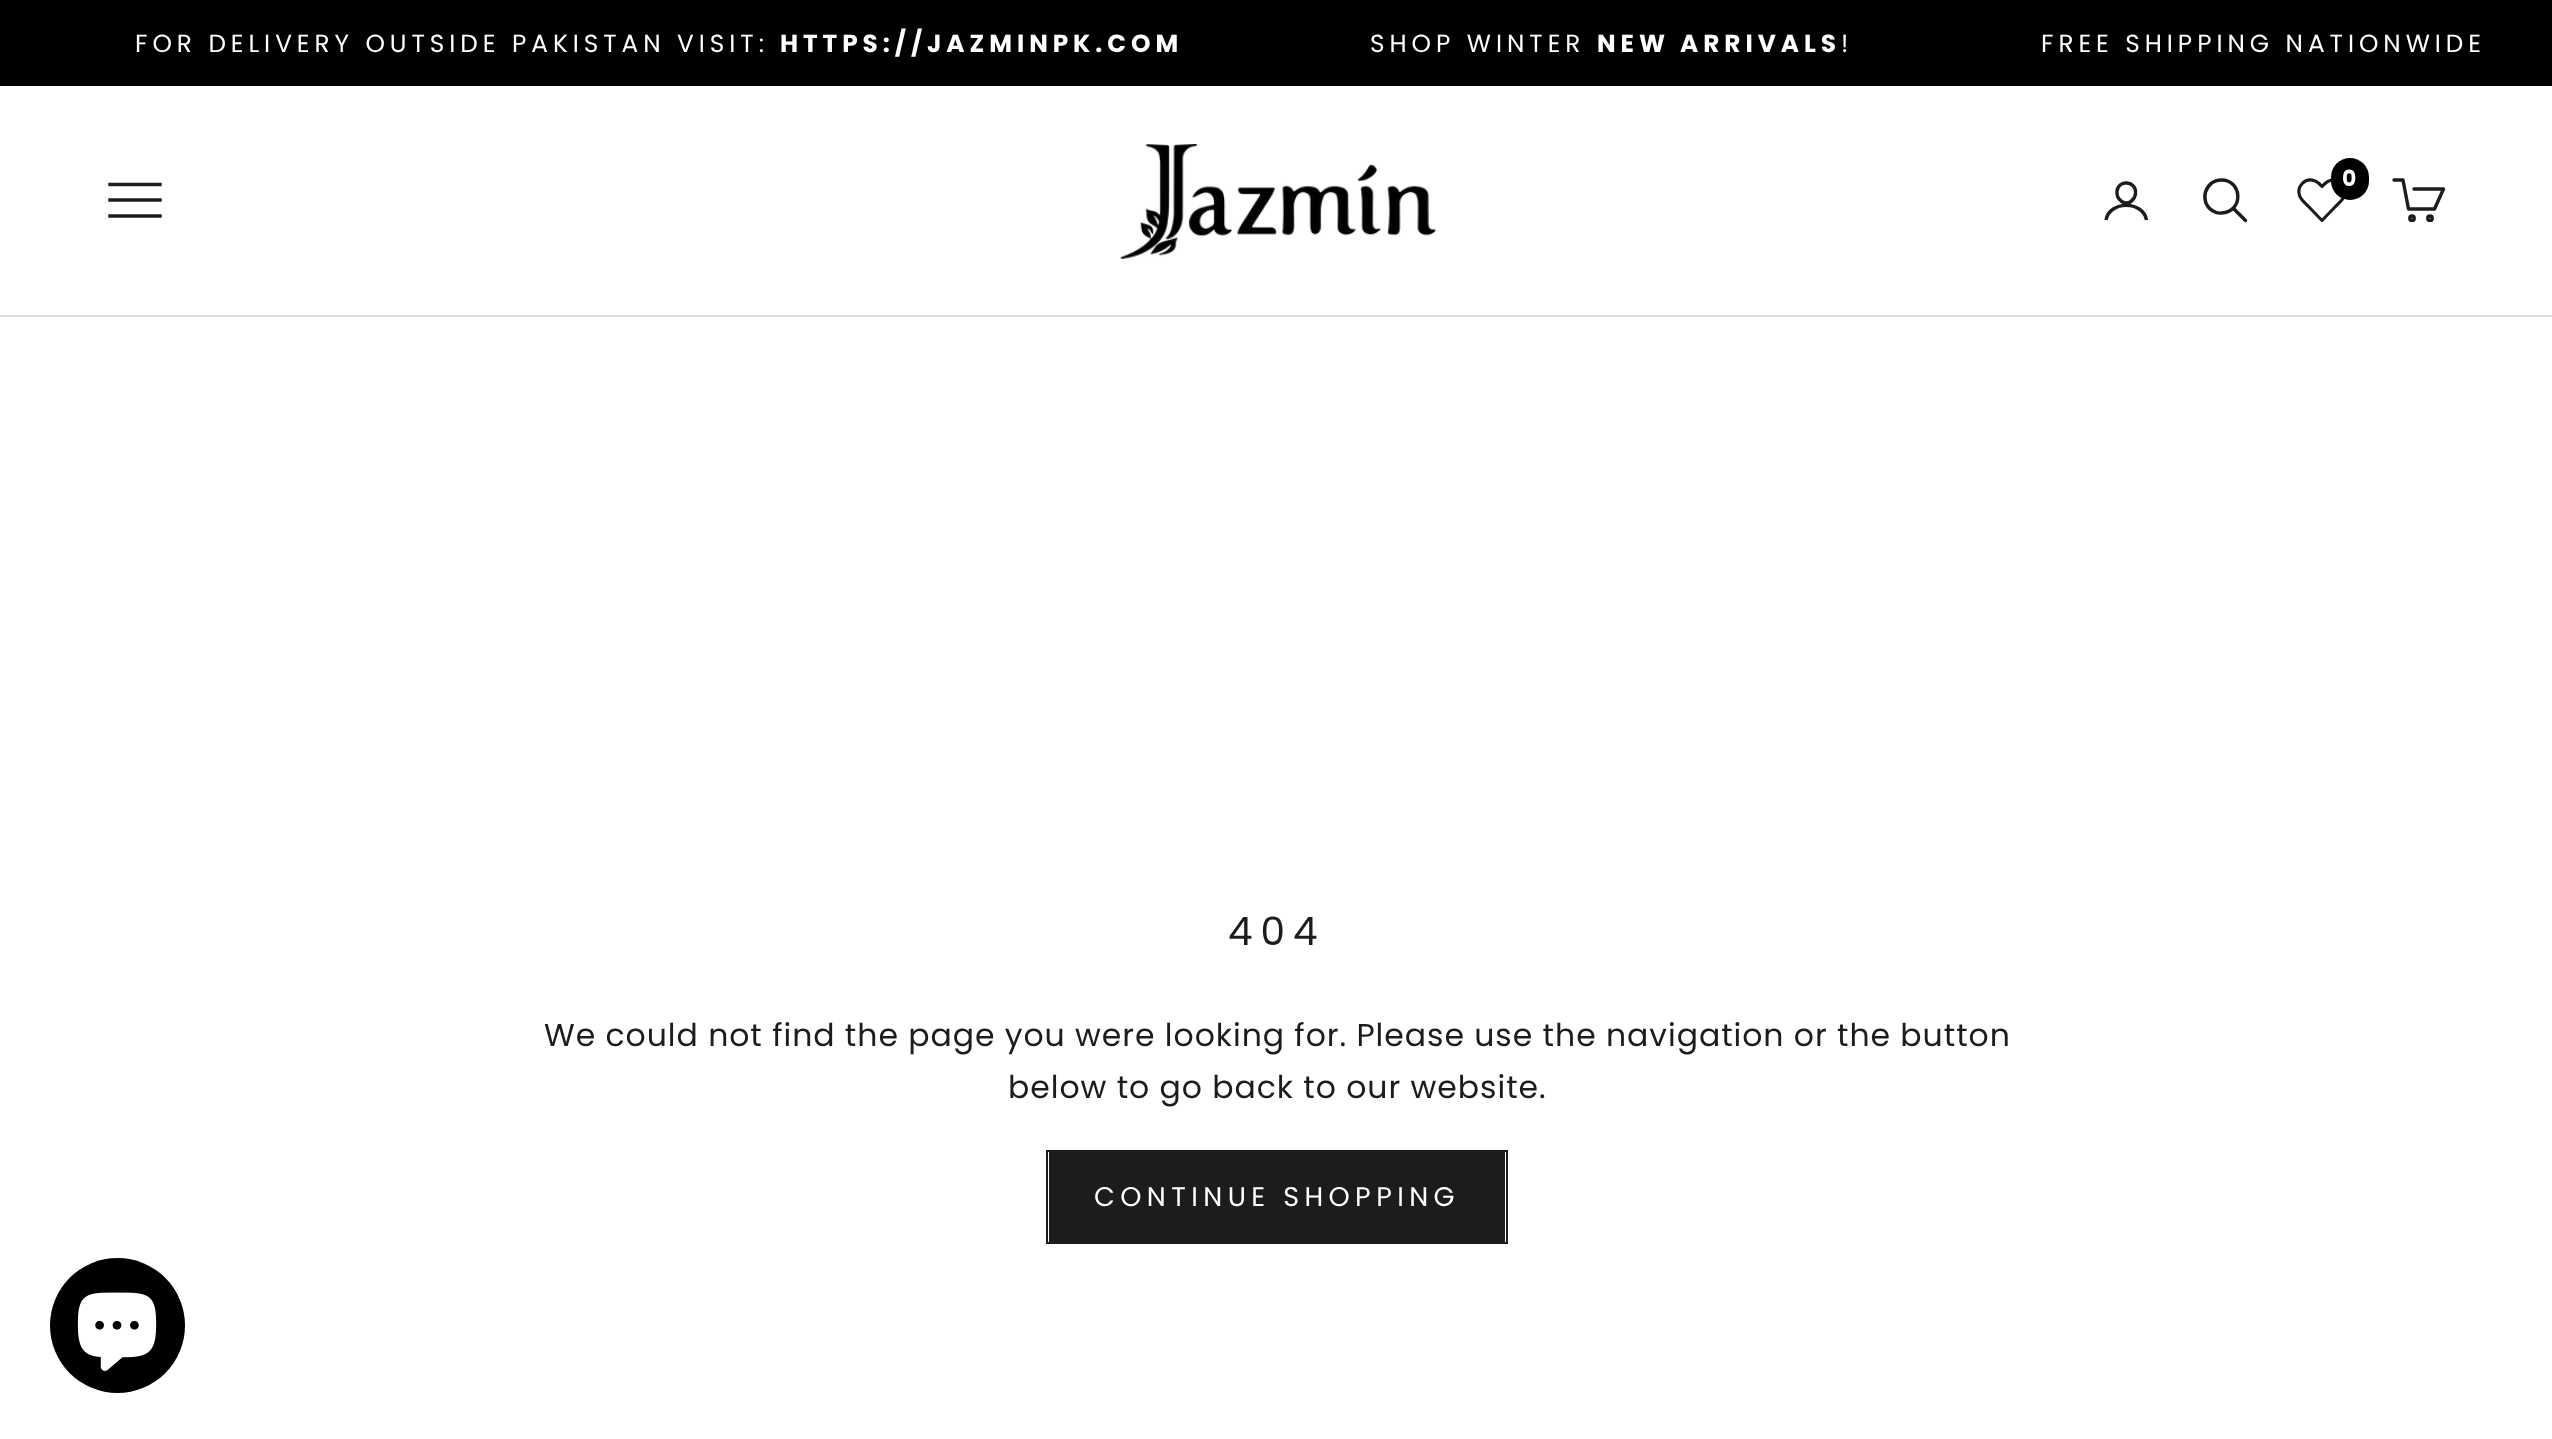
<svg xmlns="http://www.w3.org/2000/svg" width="2552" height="1439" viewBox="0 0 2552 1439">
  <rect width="100%" height="100%" fill="#fff"/>
  <path d="M0 0h2552v86H0z" fill="#000"/>
  <path d="M0 315h2552v2H0z" fill="#ddd"/>
  <image x="1120" y="144" width="316" height="115" href="img/1.png"/>
  <path d="M2135.5 193C2135.5 195.5 2134.5 198 2132.5 200C2125.5 207.5 2116 199.5 2117 191C2118.5 179 2136.5 181 2135.5 193Z" fill="none" stroke="#1c1c1c" stroke-width="3.4" stroke-linecap="round" stroke-linejoin="round"/>
  <path d="M2106 220C2109.5 200.5 2143 200.5 2146.5 220" fill="none" stroke="#1c1c1c" stroke-width="3.4"/>
  <path d="M2221.5 180C2204.5 180 2198.5 202.5 2213 211C2215.5 212.5 2218.5 213.5 2221.5 213C2244 212 2242.5 180 2221.5 180Z" fill="none" stroke="#1c1c1c" stroke-width="3.4"/>
  <path d="M2234 209L2245.5 220.5" fill="none" stroke="#1c1c1c" stroke-width="3.4" stroke-linecap="round"/>
  <path d="M2322 220.5L2309 207C2305.5 203.5 2301 200 2299.5 195.5C2296.5 186.5 2305 177.5 2314 180.5C2317.5 181.5 2319.5 184 2322 186.5C2324.5 184 2326.5 181.5 2330 180.5C2339 177.5 2347.5 186.5 2344.5 195.5C2343 200 2338.5 203.5 2335 207Z" fill="none" stroke="#1c1c1c" stroke-width="3.1" stroke-linecap="round" stroke-linejoin="round"/>
  <rect x="2331" y="158" width="38" height="42" rx="19" fill="#000"/>
  <path d="M2414 189H2443.5L2434.5 209H2408.5L2403 180H2394" fill="none" stroke="#1c1c1c" stroke-width="3.4" stroke-linecap="round" stroke-linejoin="round"/>
  <circle cx="2412" cy="218.2" r="2.2" fill="none" stroke="#1c1c1c" stroke-width="3.4"/>
  <circle cx="2430" cy="218.2" r="2.2" fill="none" stroke="#1c1c1c" stroke-width="3.4"/>
  <path d="M110 216H160M110 200H160M110 184.5H160" fill="none" stroke="#1c1c1c" stroke-width="3.4" stroke-linecap="square"/>
  <path d="M1049 1152h456v90H1049z" fill="#1c1c1c"/>
  <path d="M1047 1151h460v92H1047z" fill="none" stroke="#1c1c1c" stroke-width="2"/>
  <circle cx="117.5" cy="1325.5" r="67.5" fill="#000"/>
  <image x="77" y="1292" width="80" height="79" href="img/2.png"/>
  <text x="135" y="52" font-family="Poppins" font-size="24.75" letter-spacing="4.95" fill="#fff">FOR DELIVERY OUTSIDE PAKISTAN VISIT:</text>
  <text x="780" y="52" font-family="Poppins" font-size="24.75" font-weight="bold" letter-spacing="4.95" fill="#fff">HTTPS://JAZMINPK.COM</text>
  <text x="1370" y="52" font-family="Poppins" font-size="24.75" letter-spacing="4.95" fill="#fff">SHOP WINTER</text>
  <text x="1597" y="52" font-family="Poppins" font-size="24.75" font-weight="bold" letter-spacing="4.95" fill="#fff">NEW ARRIVALS</text>
  <g font-family="Poppins" font-size="24.75" letter-spacing="4.95" fill="#fff">
    <text x="1841" y="52">!</text>
    <text x="2041" y="52">FREE SHIPPING NATIONWIDE</text>
  </g>
  <text x="2342" y="186" font-family="Poppins" font-size="22" font-weight="bold" letter-spacing="0.95" fill="#fff">0</text>
  <text x="1228" y="945" font-family="Poppins" font-size="39" letter-spacing="8" fill="#1c1c1c">404</text>
  <g font-family="Poppins" font-size="31.5" letter-spacing="0.95" fill="#1c1c1c">
    <text x="544" y="1046">We could not find the page you were looking for. Please use the navigation or the button</text>
    <text x="1008" y="1098">below to go back to our website.</text>
  </g>
  <text x="1094" y="1206" font-family="Poppins" font-size="27" letter-spacing="5.4" fill="#fff">CONTINUE SHOPPING</text>
</svg>
